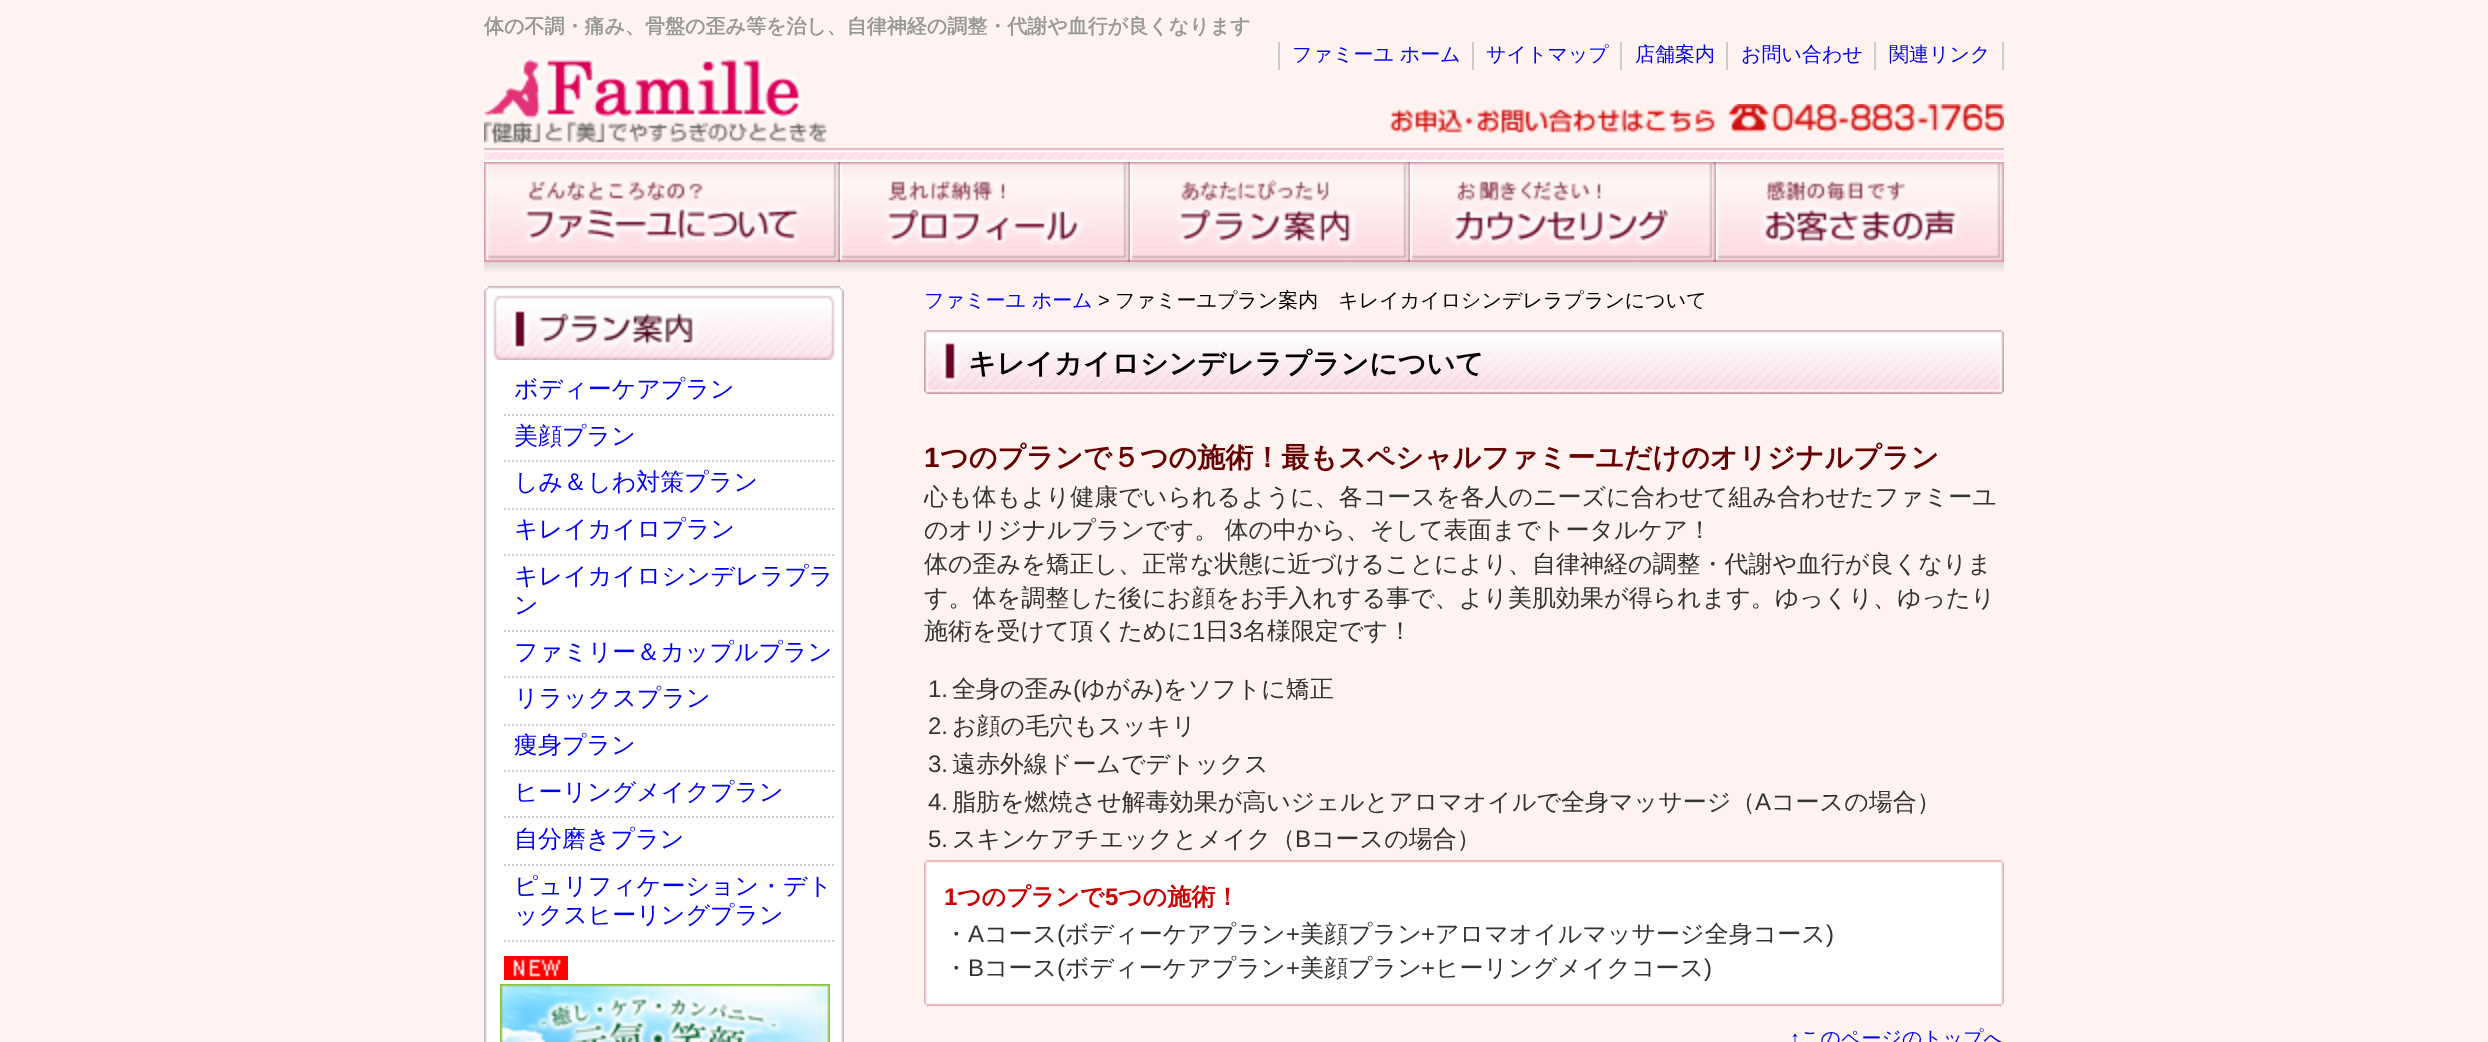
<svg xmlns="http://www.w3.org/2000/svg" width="2488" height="1042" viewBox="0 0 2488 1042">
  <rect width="100%" height="100%" fill="#fef3f0"/>
  <image x="484" y="55" width="344" height="89" href="img/1.png"/>
  <path d="M2002 42h2v28H2002z" fill="#ccc"/>
  <path d="M1278 42h2v28H1278z" fill="#ccc"/>
  <path d="M1472 42h2v28H1472z" fill="#ccc"/>
  <path d="M1620 42h2v28H1620z" fill="#ccc"/>
  <path d="M1726 42h2v28H1726z" fill="#ccc"/>
  <path d="M1874 42h2v28H1874z" fill="#ccc"/>
  <image x="1390" y="104" width="614" height="30" href="img/2.png"/>
  <image x="484" y="148" width="1520" height="14" href="img/3.png"/>
  <image x="484" y="162" width="356" height="100" href="img/4.png"/>
  <image x="840" y="162" width="290" height="100" href="img/5.png"/>
  <image x="1130" y="162" width="280" height="100" href="img/6.png"/>
  <image x="1410" y="162" width="306" height="100" href="img/7.png"/>
  <image x="1716" y="162" width="288" height="100" href="img/8.png"/>
  <image x="484" y="262" width="1520" height="10" href="img/9.png"/>
  <image x="484" y="360" width="360" height="682" href="img/10.png"/>
  <image x="484" y="286" width="360" height="74" href="img/11.png"/>
  <path d="M504 415H834" fill="none" stroke="#ccc" stroke-width="2" stroke-dasharray="2 2"/>
  <path d="M504 461H834" fill="none" stroke="#ccc" stroke-width="2" stroke-dasharray="2 2"/>
  <path d="M504 509H834" fill="none" stroke="#ccc" stroke-width="2" stroke-dasharray="2 2"/>
  <path d="M504 555H834" fill="none" stroke="#ccc" stroke-width="2" stroke-dasharray="2 2"/>
  <path d="M504 631H834" fill="none" stroke="#ccc" stroke-width="2" stroke-dasharray="2 2"/>
  <path d="M504 677H834" fill="none" stroke="#ccc" stroke-width="2" stroke-dasharray="2 2"/>
  <path d="M504 725H834" fill="none" stroke="#ccc" stroke-width="2" stroke-dasharray="2 2"/>
  <path d="M504 771H834" fill="none" stroke="#ccc" stroke-width="2" stroke-dasharray="2 2"/>
  <path d="M504 817H834" fill="none" stroke="#ccc" stroke-width="2" stroke-dasharray="2 2"/>
  <path d="M504 865H834" fill="none" stroke="#ccc" stroke-width="2" stroke-dasharray="2 2"/>
  <path d="M504 941H834" fill="none" stroke="#ccc" stroke-width="2" stroke-dasharray="2 2"/>
  <image x="504" y="956" width="64" height="24" href="img/12.png"/>
  <image x="500" y="984" width="330" height="58" href="img/13.png"/>
  <image x="924" y="330" width="1080" height="64" href="img/14.png"/>
  <image x="924" y="860" width="1080" height="10" href="img/15.png"/>
  <image x="924" y="870" width="1080" height="126" href="img/16.png"/>
  <image x="924" y="996" width="1080" height="10" href="img/17.png"/>
  <text x="484" y="33" font-family="WenQuanYi Zen Hei" font-size="20" font-weight="bold" fill="#999">体の不調・痛み、骨盤の歪み等を治し、自律神経の調整・代謝や血行が良くなります</text>
  <g font-family="WenQuanYi Zen Hei" font-size="20" font-weight="500" fill="#00e">
    <text x="1292" y="61">ファミーユ ホーム</text>
    <text x="1486" y="61">サイトマップ</text>
    <text x="1635" y="61">店舗案内</text>
    <text x="1741" y="61">お問い合わせ</text>
    <text x="1889" y="61">関連リンク</text>
  </g>
  <g font-family="WenQuanYi Zen Hei" font-size="24" font-weight="500" fill="#00e">
    <text x="514" y="397">ボディーケアプラン</text>
    <text x="514" y="444">美顔プラン</text>
    <text x="514" y="490">しみ＆しわ対策プラン</text>
    <text x="514" y="537">キレイカイロプラン</text>
    <text x="514" y="584">キレイカイロシンデレラプラ</text>
    <text x="514" y="613">ン</text>
    <text x="514" y="660">ファミリー＆カップルプラン</text>
    <text x="514" y="706">リラックスプラン</text>
    <text x="514" y="753">痩身プラン</text>
    <text x="514" y="800">ヒーリングメイクプラン</text>
    <text x="514" y="847">自分磨きプラン</text>
    <text x="514" y="894">ピュリフィケーション・デト</text>
    <text x="514" y="923">ックスヒーリングプラン</text>
  </g>
  <text x="924" y="307" font-family="WenQuanYi Zen Hei" font-size="20" font-weight="500" fill="#00e">ファミーユ ホーム</text>
  <text x="1098" y="307" font-family="Liberation Sans" font-size="20" fill="#000">&gt;</text>
  <text x="1115" y="307" font-family="WenQuanYi Zen Hei" font-size="20" font-weight="500" fill="#000">ファミーユプラン案内　キレイカイロシンデレラプランについて</text>
  <text x="968" y="373" font-family="WenQuanYi Zen Hei" font-size="28" font-weight="bold" fill="#000">キレイカイロシンデレラプランについて</text>
  <text x="924" y="467" font-family="Liberation Sans" font-size="28" font-weight="bold" fill="#600">1</text>
  <text x="940" y="467" font-family="WenQuanYi Zen Hei" font-size="28" font-weight="bold" fill="#600">つのプランで５つの施術！最もスペシャルファミーユだけのオリジナルプラン</text>
  <g font-family="WenQuanYi Zen Hei" font-size="24" font-weight="500" fill="#333">
    <text x="924" y="505">心も体もより健康でいられるように、各コースを各人のニーズに合わせて組み合わせたファミーユ</text>
    <text x="924" y="538" word-spacing="-1">のオリジナルプランです。 体の中から、そして表面までトータルケア！</text>
    <text x="924" y="572">体の歪みを矯正し、正常な状態に近づけることにより、自律神経の調整・代謝や血行が良くなりま</text>
    <text x="924" y="606">す。体を調整した後にお顔をお手入れする事で、より美肌効果が得られます。ゆっくり、ゆったり</text>
    <text x="924" y="639">施術を受けて頂くために</text>
  </g>
  <text x="1192" y="639" font-family="Liberation Sans" font-size="24" fill="#333">1</text>
  <text x="1205" y="639" font-family="WenQuanYi Zen Hei" font-size="24" font-weight="500" fill="#333">日</text>
  <text x="1229" y="639" font-family="Liberation Sans" font-size="24" fill="#333">3</text>
  <text x="1243" y="639" font-family="WenQuanYi Zen Hei" font-size="24" font-weight="500" fill="#333">名様限定です！</text>
  <text x="928" y="697" font-family="Liberation Sans" font-size="24" fill="#333">1.</text>
  <text x="952" y="697" font-family="WenQuanYi Zen Hei" font-size="24" font-weight="500" fill="#333">全身の歪み</text>
  <text x="1073" y="697" font-family="Liberation Sans" font-size="24" fill="#333">(</text>
  <text x="1081" y="697" font-family="WenQuanYi Zen Hei" font-size="24" font-weight="500" fill="#333">ゆがみ</text>
  <text x="1155" y="697" font-family="Liberation Sans" font-size="24" fill="#333">)</text>
  <text x="1163" y="697" font-family="WenQuanYi Zen Hei" font-size="24" font-weight="500" fill="#333">をソフトに矯正</text>
  <text x="928" y="734" font-family="Liberation Sans" font-size="24" fill="#333">2.</text>
  <text x="952" y="734" font-family="WenQuanYi Zen Hei" font-size="24" font-weight="500" fill="#333">お顔の毛穴もスッキリ</text>
  <text x="928" y="772" font-family="Liberation Sans" font-size="24" fill="#333">3.</text>
  <text x="952" y="772" font-family="WenQuanYi Zen Hei" font-size="24" font-weight="500" fill="#333">遠赤外線ドームでデトックス</text>
  <text x="928" y="810" font-family="Liberation Sans" font-size="24" fill="#333">4.</text>
  <text x="952" y="810" font-family="WenQuanYi Zen Hei" font-size="24" font-weight="500" fill="#333">脂肪を燃焼させ解毒効果が高いジェルとアロマオイルで全身マッサージ（</text>
  <text x="1755" y="810" font-family="Liberation Sans" font-size="24" fill="#333">A</text>
  <text x="1771" y="810" font-family="WenQuanYi Zen Hei" font-size="24" font-weight="500" fill="#333">コースの場合）</text>
  <text x="928" y="847" font-family="Liberation Sans" font-size="24" fill="#333">5.</text>
  <text x="952" y="847" font-family="WenQuanYi Zen Hei" font-size="24" font-weight="500" fill="#333">スキンケアチエックとメイク（</text>
  <text x="1295" y="847" font-family="Liberation Sans" font-size="24" fill="#333">B</text>
  <text x="1311" y="847" font-family="WenQuanYi Zen Hei" font-size="24" font-weight="500" fill="#333">コースの場合）</text>
  <text x="944" y="905" font-family="Liberation Sans" font-size="24" font-weight="bold" fill="#c00">1</text>
  <text x="957" y="905" font-family="WenQuanYi Zen Hei" font-size="24" font-weight="bold" fill="#c00">つのプランで</text>
  <text x="1105" y="905" font-family="Liberation Sans" font-size="24" font-weight="bold" fill="#c00">5</text>
  <text x="1118" y="905" font-family="WenQuanYi Zen Hei" font-size="24" font-weight="bold" fill="#c00">つの施術！</text>
  <text x="944" y="942" font-family="WenQuanYi Zen Hei" font-size="24" font-weight="500" fill="#333">・</text>
  <text x="968" y="942" font-family="Liberation Sans" font-size="24" fill="#333">A</text>
  <text x="984" y="942" font-family="WenQuanYi Zen Hei" font-size="24" font-weight="500" fill="#333">コース</text>
  <text x="1057" y="942" font-family="Liberation Sans" font-size="24" fill="#333">(</text>
  <text x="1065" y="942" font-family="WenQuanYi Zen Hei" font-size="24" font-weight="500" fill="#333">ボディーケアプラン</text>
  <text x="1286" y="942" font-family="Liberation Sans" font-size="24" fill="#333">+</text>
  <text x="1300" y="942" font-family="WenQuanYi Zen Hei" font-size="24" font-weight="500" fill="#333">美顔プラン</text>
  <text x="1421" y="942" font-family="Liberation Sans" font-size="24" fill="#333">+</text>
  <text x="1435" y="942" font-family="WenQuanYi Zen Hei" font-size="24" font-weight="500" fill="#333">アロマオイルマッサージ全身コース</text>
  <text x="1826" y="942" font-family="Liberation Sans" font-size="24" fill="#333">)</text>
  <text x="944" y="976" font-family="WenQuanYi Zen Hei" font-size="24" font-weight="500" fill="#333">・</text>
  <text x="968" y="976" font-family="Liberation Sans" font-size="24" fill="#333">B</text>
  <text x="984" y="976" font-family="WenQuanYi Zen Hei" font-size="24" font-weight="500" fill="#333">コース</text>
  <text x="1057" y="976" font-family="Liberation Sans" font-size="24" fill="#333">(</text>
  <text x="1065" y="976" font-family="WenQuanYi Zen Hei" font-size="24" font-weight="500" fill="#333">ボディーケアプラン</text>
  <text x="1286" y="976" font-family="Liberation Sans" font-size="24" fill="#333">+</text>
  <text x="1300" y="976" font-family="WenQuanYi Zen Hei" font-size="24" font-weight="500" fill="#333">美顔プラン</text>
  <text x="1421" y="976" font-family="Liberation Sans" font-size="24" fill="#333">+</text>
  <text x="1435" y="976" font-family="WenQuanYi Zen Hei" font-size="24" font-weight="500" fill="#333">ヒーリングメイクコース</text>
  <text x="1704" y="976" font-family="Liberation Sans" font-size="24" fill="#333">)</text>
  <text x="1790" y="1045" font-family="Liberation Sans" font-size="20" fill="#00e">↑</text>
  <text x="1800" y="1045" font-family="WenQuanYi Zen Hei" font-size="20" font-weight="500" fill="#00e">このページのトップへ</text>
</svg>
